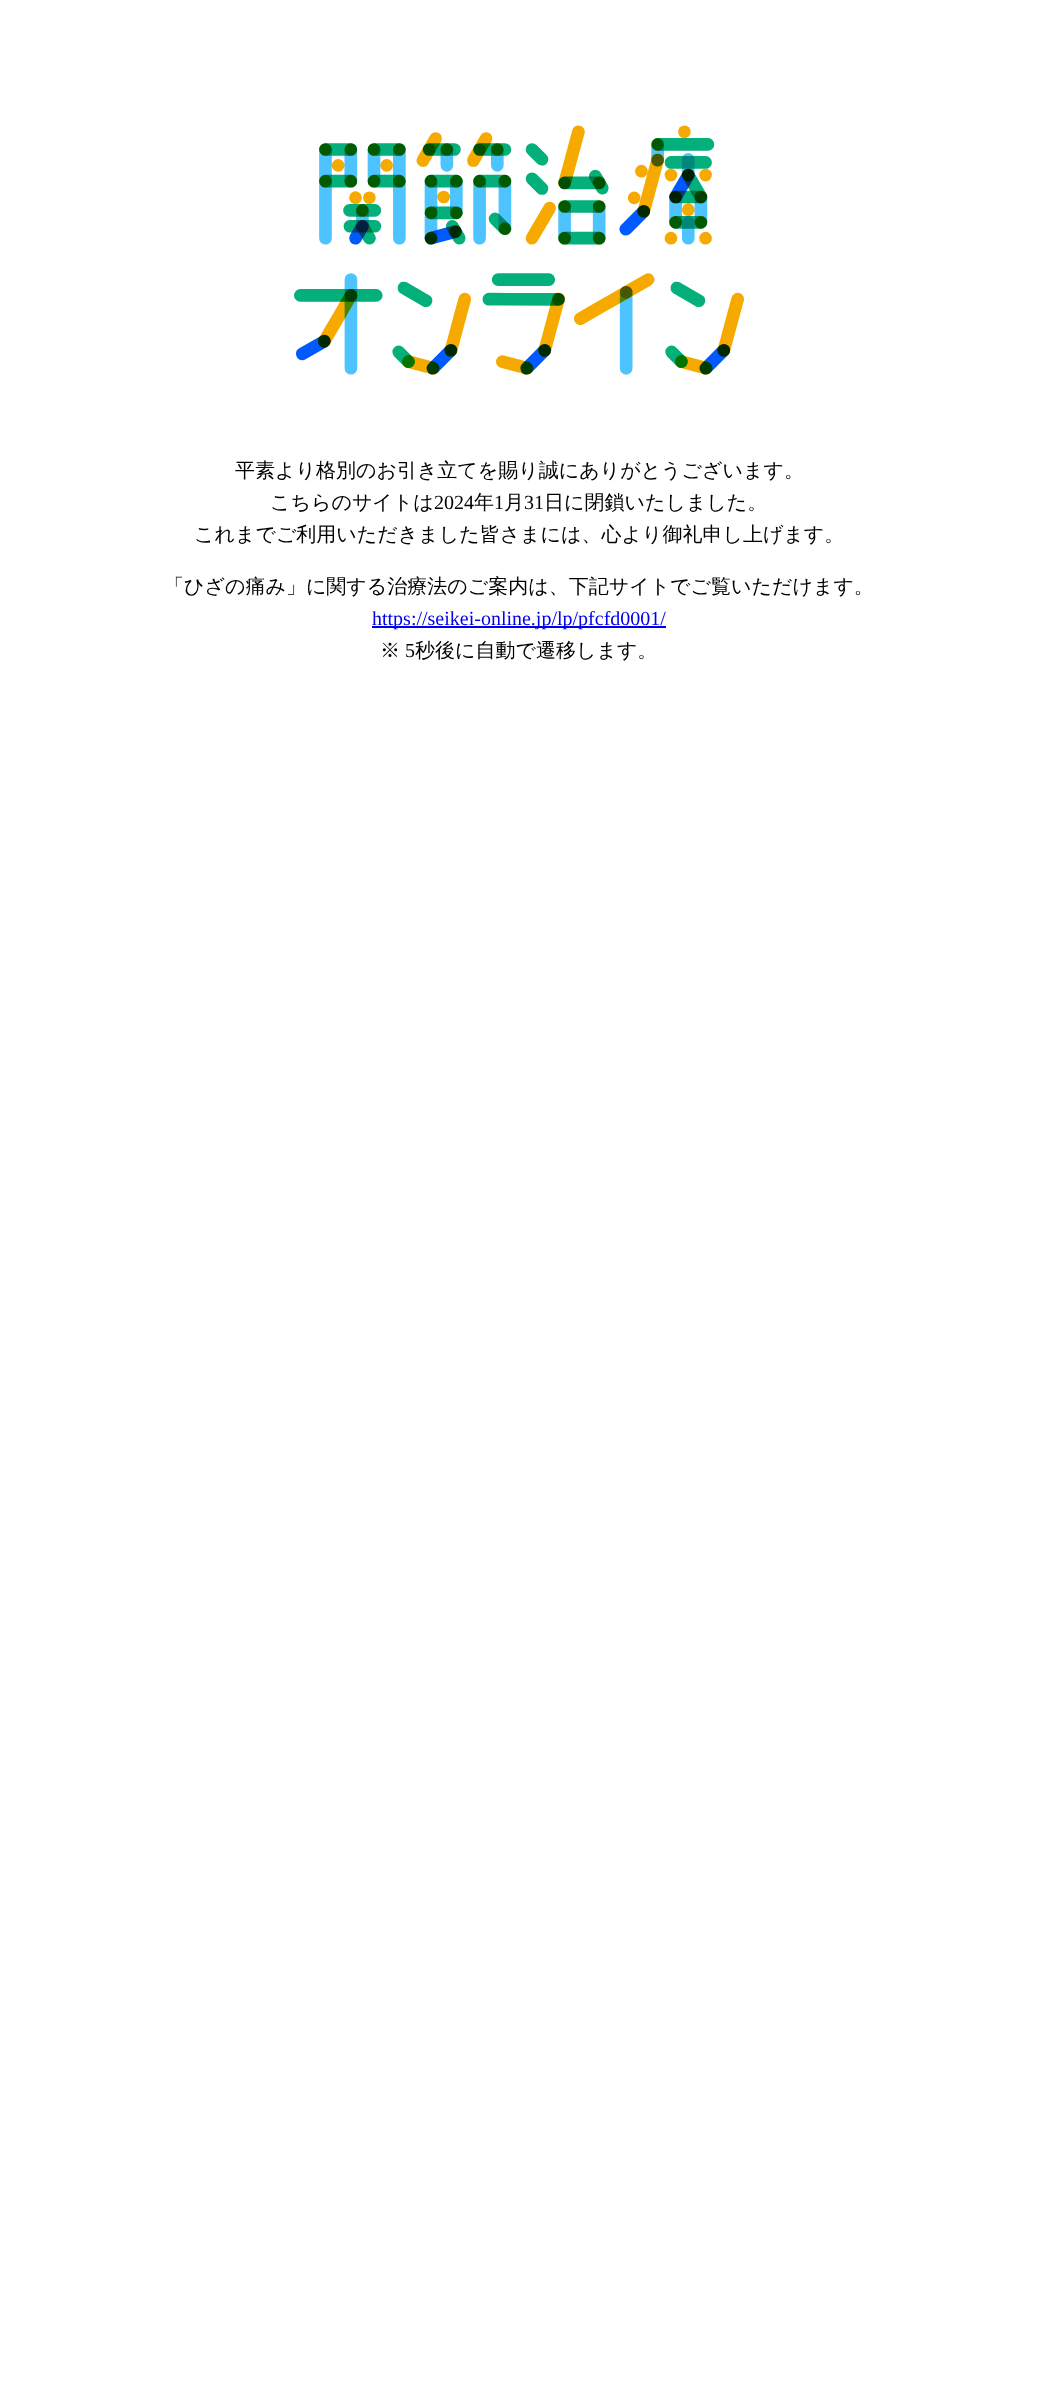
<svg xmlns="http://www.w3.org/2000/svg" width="1038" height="2382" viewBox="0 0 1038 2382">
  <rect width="100%" height="100%" fill="#fff"/>
  <image x="293" y="125" width="451" height="250" href="img/1.png"/>
  <path d="M372 626h294v2H372z" fill="#00e"/>
  <g font-family="WenQuanYi Zen Hei" font-size="20" font-weight="500" fill="#000">
    <text x="235" y="477">平素より格別のお引き立てを賜り誠にありがとうございます。</text>
    <text x="270" y="509">こちらのサイトは</text>
  </g>
  <text x="434" y="509" font-family="Liberation Serif" font-size="20" fill="#000">2024</text>
  <text x="474" y="509" font-family="WenQuanYi Zen Hei" font-size="20" font-weight="500" fill="#000">年</text>
  <text x="494" y="509" font-family="Liberation Serif" font-size="20" fill="#000">1</text>
  <text x="504" y="509" font-family="WenQuanYi Zen Hei" font-size="20" font-weight="500" fill="#000">月</text>
  <text x="524" y="509" font-family="Liberation Serif" font-size="20" fill="#000">31</text>
  <g font-family="WenQuanYi Zen Hei" font-size="20" font-weight="500" fill="#000">
    <text x="544" y="509">日に閉鎖いたしました。</text>
    <text x="194" y="541">これまでご利用いただきました皆さまには、心より御礼申し上げます。</text>
    <text x="164" y="593">「ひざの痛み」に関する治療法のご案内は、下記サイトでご覧いただけます。</text>
  </g>
  <text x="372" y="625" font-family="Liberation Serif" font-size="20" fill="#00e">https://seikei-online.jp/lp/pfcfd0001/</text>
  <text x="380" y="657" font-family="WenQuanYi Zen Hei" font-size="20" font-weight="500" fill="#000">※</text>
  <text x="405" y="657" font-family="Liberation Serif" font-size="20" fill="#000">5</text>
  <text x="415" y="657" font-family="WenQuanYi Zen Hei" font-size="20" font-weight="500" fill="#000">秒後に自動で遷移します。</text>
</svg>
